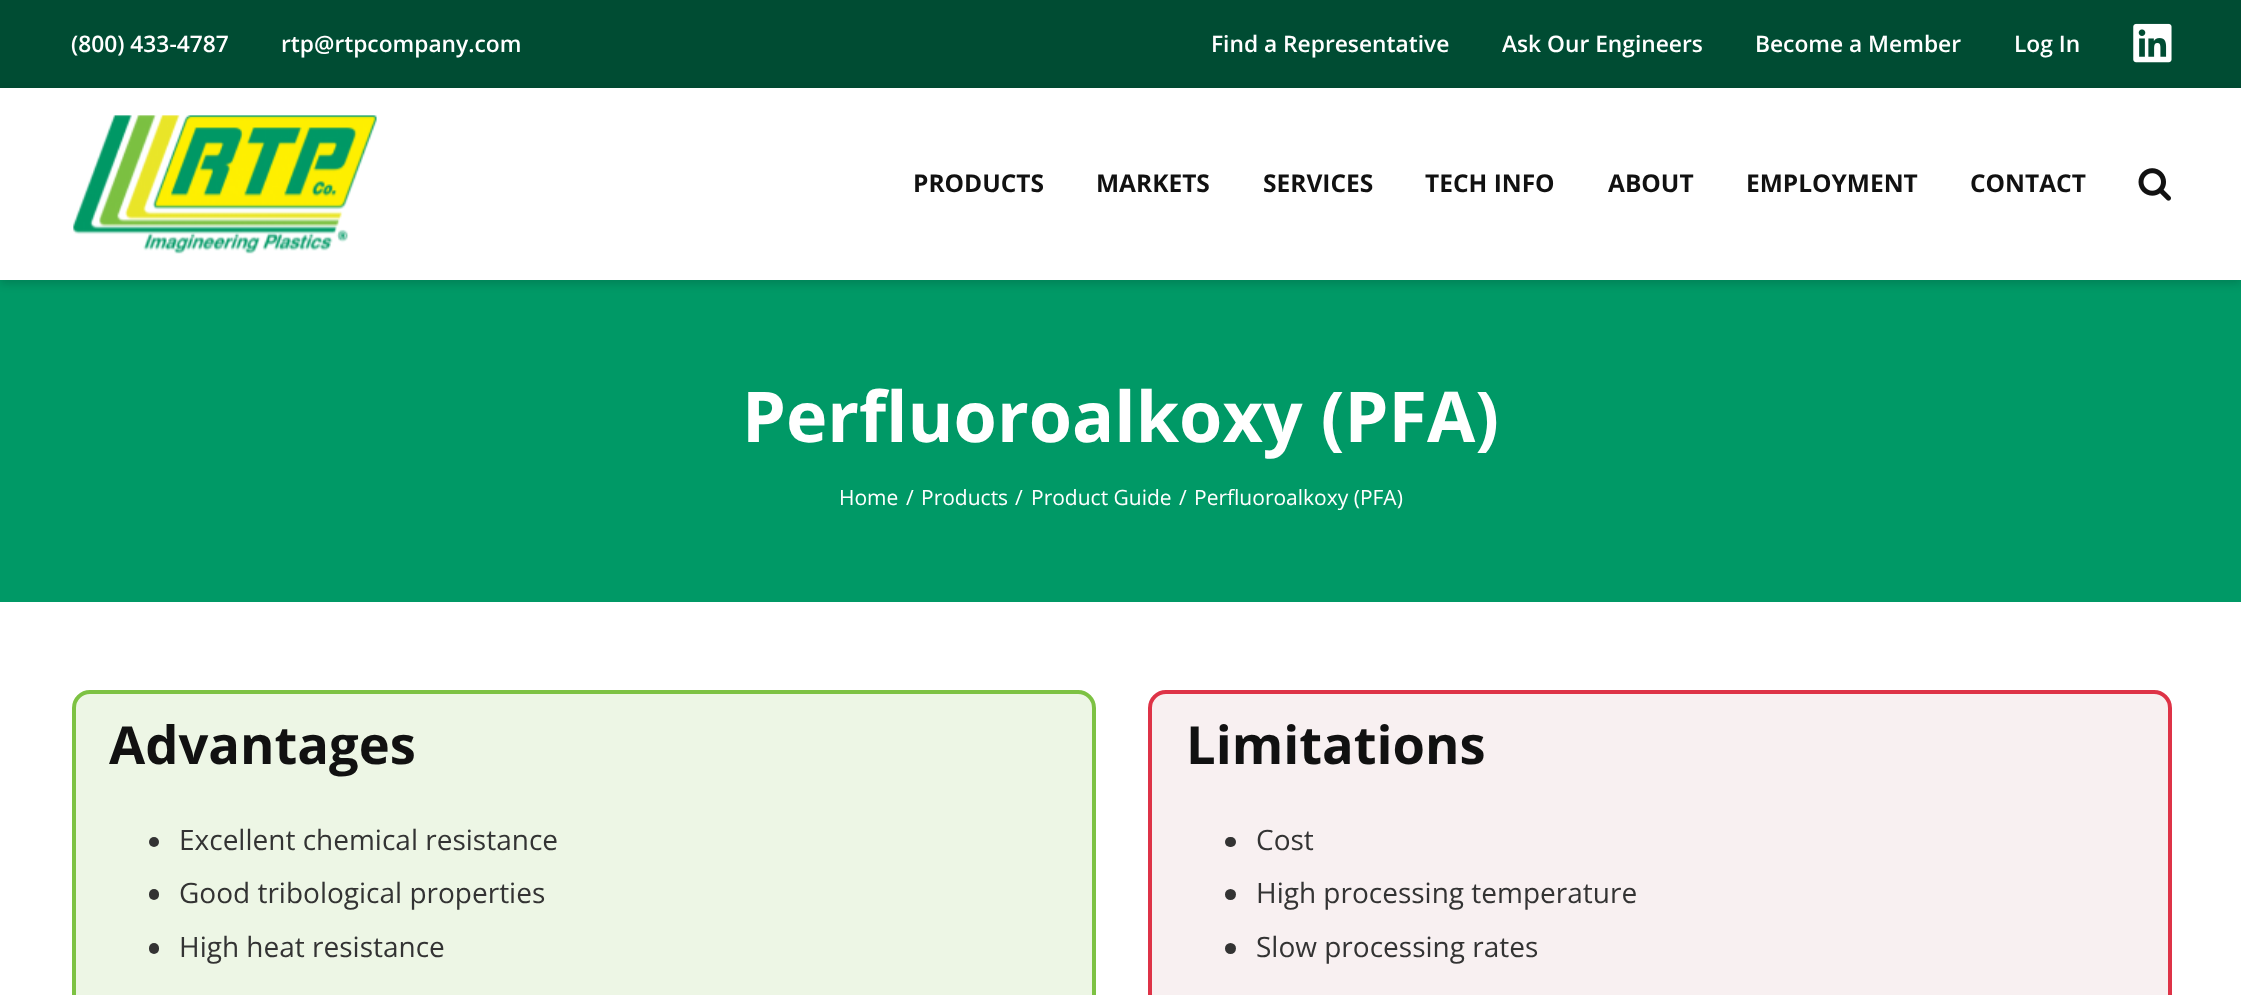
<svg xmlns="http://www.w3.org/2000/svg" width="2241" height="995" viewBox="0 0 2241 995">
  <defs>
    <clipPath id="clip1"><path d="M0 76H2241V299H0ZM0 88H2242V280H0Z" clip-rule="evenodd"/></clipPath>
  </defs>
  <rect width="100%" height="100%" fill="#fff"/>
  <path d="M0 0h2241v88H0z" fill="#004c33"/>
  <image x="2133" y="23" width="39" height="40" href="img/1.png"/>
  <path d="M0 280h2241v322H0z" fill="#096"/>
  <g clip-path="url(#clip1)">
    <path d="M0 91h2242v193H0z" fill="#00000026" filter="blur(4.5px)"/>
  </g>
  <image x="73" y="115" width="304" height="139" href="img/2.png"/>
  <image x="2138" y="168" width="33" height="33" href="img/3.png"/>
  <rect x="74" y="692" width="1020" height="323" rx="16" fill="#edf6e5" stroke="#7dc243" stroke-width="4"/>
  <circle cx="154" cy="842" r="5" fill="#333"/>
  <rect x="149" y="889" width="10" height="11" rx="5" fill="#333"/>
  <rect x="149" y="943" width="10" height="11" rx="5" fill="#333"/>
  <rect x="1150" y="692" width="1020" height="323" rx="16" fill="#f8f0f1" stroke="#de3347" stroke-width="4"/>
  <rect x="1225" y="837" width="11" height="10" rx="5" fill="#333"/>
  <circle cx="1230.5" cy="894.5" r="5.5" fill="#333"/>
  <circle cx="1230.5" cy="948.5" r="5.5" fill="#333"/>
  <g font-family="Open Sans" font-size="22.75" font-weight="600" fill="#fff">
    <text x="71" y="52">(800) 433-4787</text>
    <text x="281" y="52">rtp@rtpcompany.com</text>
    <text x="1211" y="52">Find a Representative</text>
    <text x="1502" y="52">Ask Our Engineers</text>
    <text x="1755" y="52">Become a Member</text>
    <text x="2014" y="52">Log In</text>
  </g>
  <g font-family="Open Sans" font-size="24.5" font-weight="bold" fill="#111">
    <text x="913" y="192">PRODUCTS</text>
    <text x="1096" y="192">MARKETS</text>
    <text x="1263" y="192">SERVICES</text>
    <text x="1425" y="192">TECH INFO</text>
    <text x="1608" y="192">ABOUT</text>
    <text x="1746" y="192">EMPLOYMENT</text>
    <text x="1970" y="192">CONTACT</text>
  </g>
  <text x="742" y="442" font-family="Open Sans" font-size="70" font-weight="bold" fill="#fff">Perfluoroalkoxy (PFA)</text>
  <g font-family="Open Sans" font-size="21" fill="#fff">
    <text x="839" y="505">Home</text>
    <text x="906" y="505">/</text>
    <text x="921" y="505">Products</text>
    <text x="1015" y="505">/</text>
    <text x="1031" y="505">Product Guide</text>
    <text x="1179" y="505">/</text>
    <text x="1194" y="505">Perfluoroalkoxy (PFA)</text>
  </g>
  <text x="109" y="764" font-family="Open Sans" font-size="52.5" font-weight="bold" fill="#111">Advantages</text>
  <g font-family="Open Sans" font-size="28" fill="#333">
    <text x="179" y="850">Excellent chemical resistance</text>
    <text x="179" y="903">Good tribological properties</text>
    <text x="179" y="957">High heat resistance</text>
  </g>
  <text x="1186" y="764" font-family="Open Sans" font-size="52.5" font-weight="bold" fill="#111">Limitations</text>
  <g font-family="Open Sans" font-size="28" fill="#333">
    <text x="1256" y="850">Cost</text>
    <text x="1256" y="903">High processing temperature</text>
    <text x="1256" y="957">Slow processing rates</text>
  </g>
</svg>
